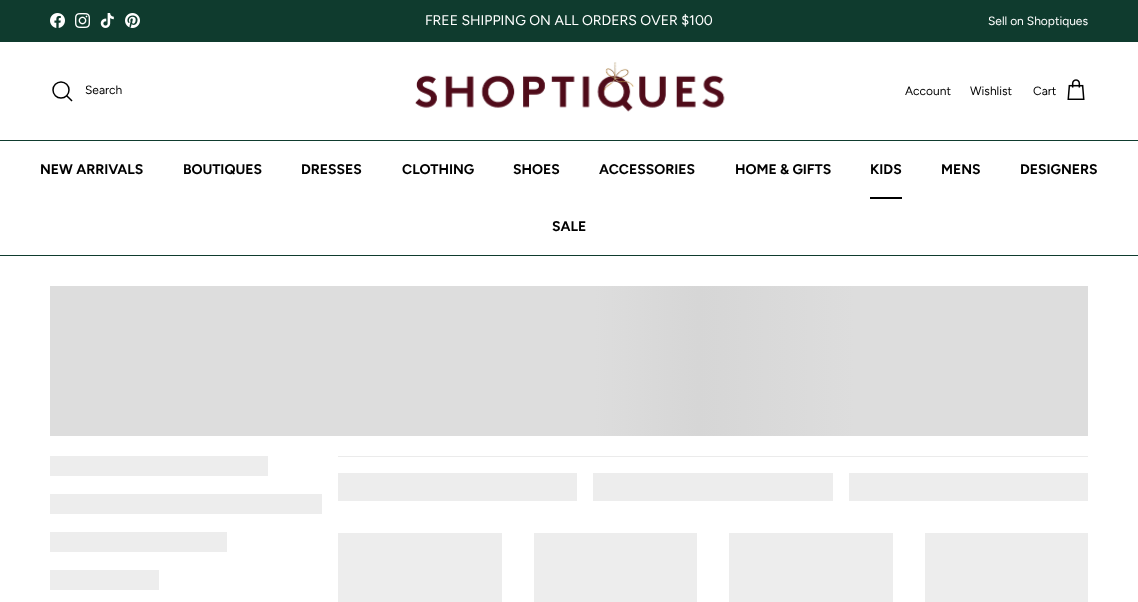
<svg xmlns="http://www.w3.org/2000/svg" width="1138" height="602" viewBox="0 0 1138 602">
  <defs>
    <linearGradient id="g1" gradientUnits="userSpaceOnUse" x1="512" y1="286" x2="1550" y2="286"><stop offset="0.08" stop-color="#ddd"/><stop offset="0.18" stop-color="#d6d6d6"/><stop offset="0.33" stop-color="#ddd"/></linearGradient>
  </defs>
  <rect width="100%" height="100%" fill="#fff"/>
  <path d="M0 0h1138v42H0z" fill="#0f3b2e"/>
  <image x="50" y="13" width="15" height="15" href="img/1.png"/>
  <image x="75" y="13" width="15" height="15" href="img/2.png"/>
  <image x="100" y="13" width="14" height="15" href="img/3.png"/>
  <image x="125" y="13" width="15" height="15" href="img/4.png"/>
  <path d="M0 140h1138v1H0z" fill="#0f3b2e"/>
  <circle cx="61" cy="90" r="8" fill="none" stroke="#000" stroke-width="1.5"/>
  <path d="M67 96L71.5 100.5" fill="none" stroke="#000" stroke-width="1.5" stroke-linecap="square"/>
  <image x="415" y="62" width="310" height="50" href="img/5.png"/>
  <image x="1067" y="79" width="18" height="21" href="img/6.png"/>
  <path d="M0 255h1138v1H0z" fill="#0f3b2e"/>
  <path d="M870 197h32v2H870z" fill="#000"/>
  <path d="M50 286h462v150H50z" fill="#ddd"/>
  <path d="M512 286h576v150H512z" fill="url(#g1)"/>
  <path d="M50 456h218v20H50z" fill="#ededed"/>
  <path d="M50 494h272v20H50z" fill="#ededed"/>
  <path d="M50 532h177v20H50z" fill="#ededed"/>
  <path d="M50 570h109v20H50z" fill="#ededed"/>
  <path d="M338 456h750v1H338z" fill="#ebebeb"/>
  <path d="M338 473h239v28H338z" fill="#ededed"/>
  <path d="M593 473h240v28H593z" fill="#ededed"/>
  <path d="M849 473h239v28H849z" fill="#ededed"/>
  <path d="M338 533h164v69H338z" fill="#ededed"/>
  <path d="M534 533h163v69H534z" fill="#ededed"/>
  <path d="M729 533h164v69H729z" fill="#ededed"/>
  <path d="M925 533h163v69H925z" fill="#ededed"/>
  <text x="425" y="25" font-family="Figtree" font-size="14" fill="#fff">FREE SHIPPING ON ALL ORDERS OVER $100</text>
  <text x="988" y="25" font-family="Figtree" font-size="12" fill="#fff">Sell on Shoptiques</text>
  <g font-family="Figtree" font-size="12" fill="#000">
    <text x="85" y="94">Search</text>
    <text x="905" y="95">Account</text>
    <text x="970" y="95">Wishlist</text>
    <text x="1033" y="95">Cart</text>
  </g>
  <g font-family="Figtree" font-size="14" font-weight="bold" fill="#000">
    <text x="40" y="174">NEW ARRIVALS</text>
    <text x="183" y="174">BOUTIQUES</text>
    <text x="301" y="174">DRESSES</text>
    <text x="402" y="174">CLOTHING</text>
    <text x="513" y="174">SHOES</text>
    <text x="599" y="174">ACCESSORIES</text>
    <text x="735" y="174">HOME &amp; GIFTS</text>
    <text x="870" y="174">KIDS</text>
    <text x="941" y="174">MENS</text>
    <text x="1020" y="174">DESIGNERS</text>
    <text x="552" y="231">SALE</text>
  </g>
</svg>
